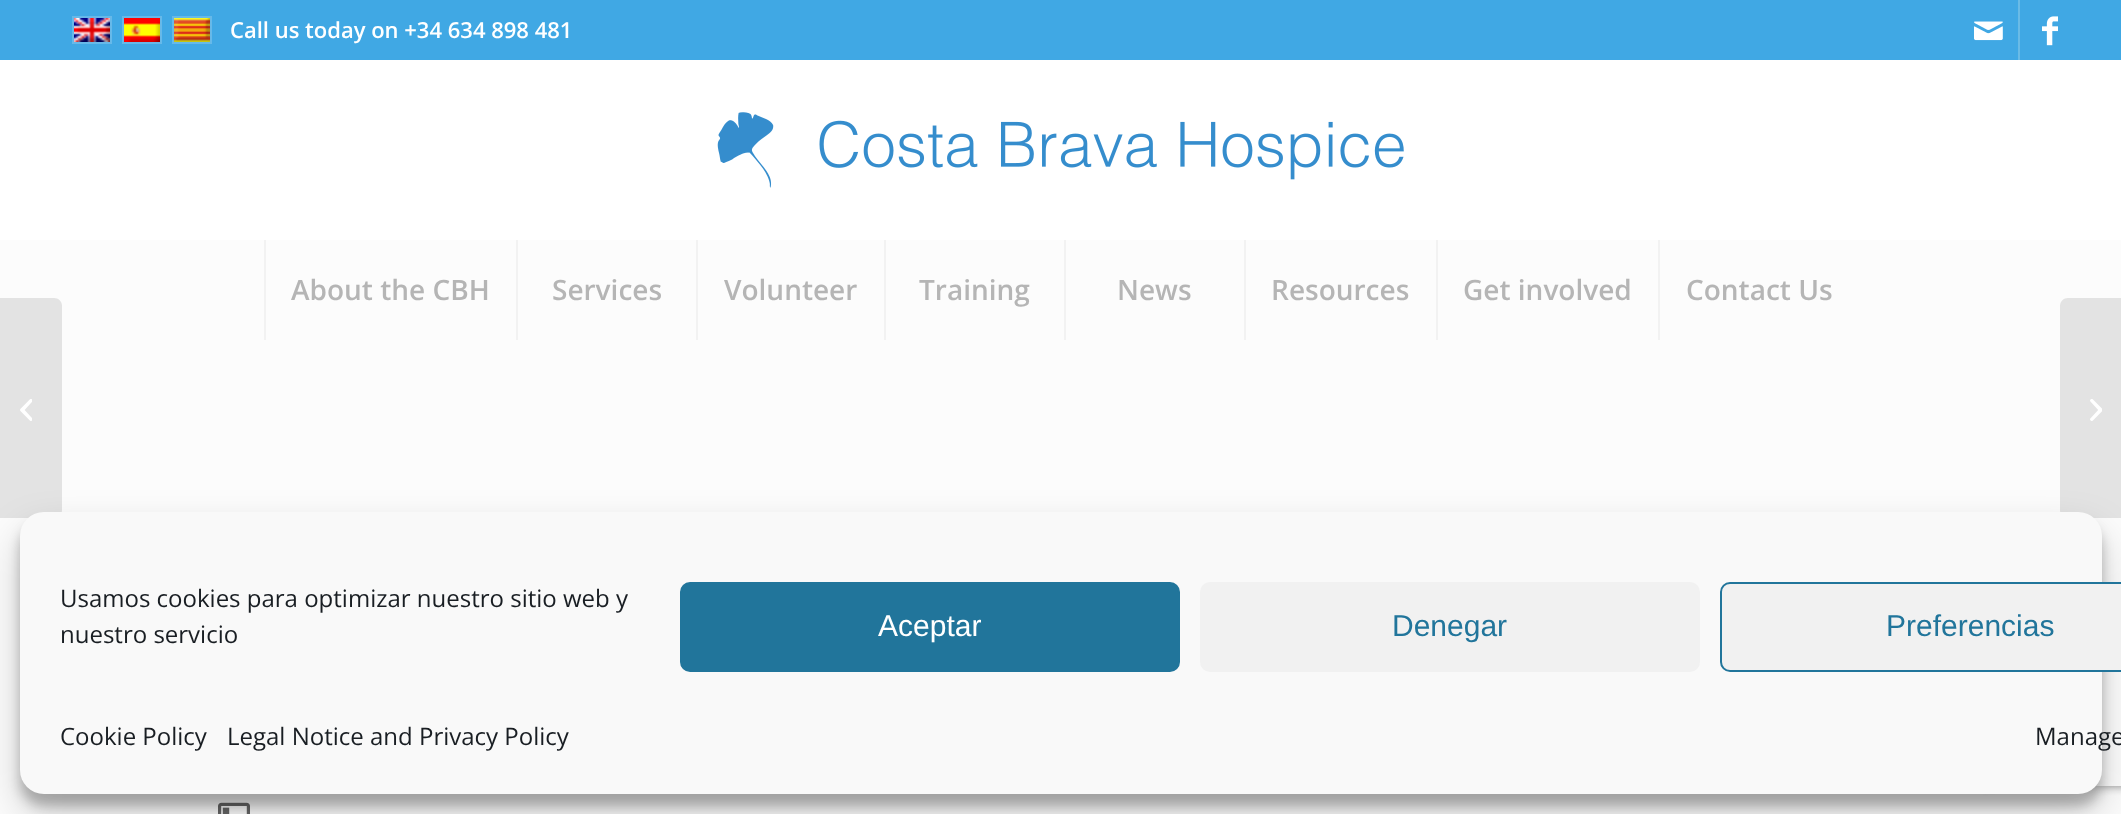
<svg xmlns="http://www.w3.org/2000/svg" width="2121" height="814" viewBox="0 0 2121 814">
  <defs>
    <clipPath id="clip1"><path d="M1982 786h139v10H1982z"/></clipPath>
  </defs>
  <rect width="100%" height="100%" fill="#fff"/>
  <path d="M0 0h2121v60H0z" fill="#40a8e4"/>
  <path d="M73 17h38v26H73z" fill="none" stroke="#66b9e9" stroke-width="2"/>
  <image x="74" y="18" width="36" height="24" href="img/1.png"/>
  <path d="M123 17h38v26H123z" fill="none" stroke="#66b9e9" stroke-width="2"/>
  <image x="124" y="18" width="36" height="24" href="img/2.png"/>
  <path d="M173 17h38v26H173z" fill="none" stroke="#66b9e9" stroke-width="2"/>
  <image x="174" y="18" width="36" height="24" href="img/3.png"/>
  <path d="M2018 0h2v60H2018z" fill="#6abbe6"/>
  <image x="1974" y="21" width="29" height="20" href="img/4.png"/>
  <image x="2042" y="16" width="16" height="30" href="img/5.png"/>
  <image x="717" y="112" width="687" height="76" href="img/6.png"/>
  <path d="M0 240h2121v574H0z" fill="#fcfcfc"/>
  <path d="M264 240h2v100H264z" fill="#f2f2f2"/>
  <path d="M516 240h2v100H516z" fill="#f2f2f2"/>
  <path d="M696 240h2v100H696z" fill="#f2f2f2"/>
  <path d="M884 240h2v100H884z" fill="#f2f2f2"/>
  <path d="M1064 240h2v100H1064z" fill="#f2f2f2"/>
  <path d="M1244 240h2v100H1244z" fill="#f2f2f2"/>
  <path d="M1436 240h2v100H1436z" fill="#f2f2f2"/>
  <path d="M1658 240h2v100H1658z" fill="#f2f2f2"/>
  <image x="218" y="802" width="32" height="12" href="img/7.png"/>
  <path d="M0 298H54C58.5 298 62 301.5 62 306V510C62 514.5 58.5 518 54 518H0Z" fill="#e3e3e3"/>
  <image x="20" y="399" width="12" height="22" href="img/8.png"/>
  <path d="M2068 298H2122V518H2068C2063.5 518 2060 514.5 2060 510V306C2060 301.5 2063.5 298 2068 298Z" fill="#e3e3e3"/>
  <image x="2090" y="399" width="12" height="22" href="img/9.png"/>
  <rect x="20" y="524" width="2082" height="282" rx="24" fill="#0000003b" filter="blur(6px)"/>
  <rect x="20" y="532" width="2082" height="282" rx="24" fill="#00000030" filter="blur(20px)"/>
  <g clip-path="url(#clip1)">
    <rect x="1982" y="666" width="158" height="120" rx="4" fill="#808080" filter="blur(5px)"/>
  </g>
  <rect x="20" y="512" width="2082" height="282" rx="24" fill="#f9f9f9"/>
  <rect x="681" y="583" width="498" height="88" rx="9" fill="#21759b" stroke="#21759b" stroke-width="2"/>
  <rect x="1200" y="582" width="500" height="90" rx="10" fill="#f1f1f1"/>
  <rect x="1721" y="583" width="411" height="88" rx="9" fill="#f1f1f1" stroke="#21759b" stroke-width="2"/>
  <text x="230" y="38" font-family="Open Sans" font-size="22" font-weight="600" fill="#fff">Call us today on +34 634 898 481</text>
  <g font-family="Open Sans" font-size="28" font-weight="600" fill="#b5b5b5">
    <text x="291" y="300">About the CBH</text>
    <text x="552" y="300">Services</text>
    <text x="724" y="300">Volunteer</text>
    <text x="919" y="300">Training</text>
    <text x="1117" y="300">News</text>
    <text x="1271" y="300">Resources</text>
    <text x="1463" y="300">Get involved</text>
    <text x="1686" y="300">Contact Us</text>
  </g>
  <g font-family="Open Sans" font-size="24" fill="#191e23">
    <text x="60" y="607">Usamos cookies para optimizar nuestro sitio web y</text>
    <text x="60" y="643">nuestro servicio</text>
  </g>
  <text x="878" y="636" font-family="Liberation Sans" font-size="30" fill="#fff">Aceptar</text>
  <g font-family="Liberation Sans" font-size="30" fill="#21759b">
    <text x="1392" y="636">Denegar</text>
    <text x="1886" y="636">Preferencias</text>
  </g>
  <g font-family="Open Sans" font-size="24" fill="#191e23">
    <text x="60" y="745">Cookie Policy</text>
    <text x="227" y="745">Legal Notice and Privacy Policy</text>
    <text x="2035" y="745">Manage</text>
  </g>
</svg>
